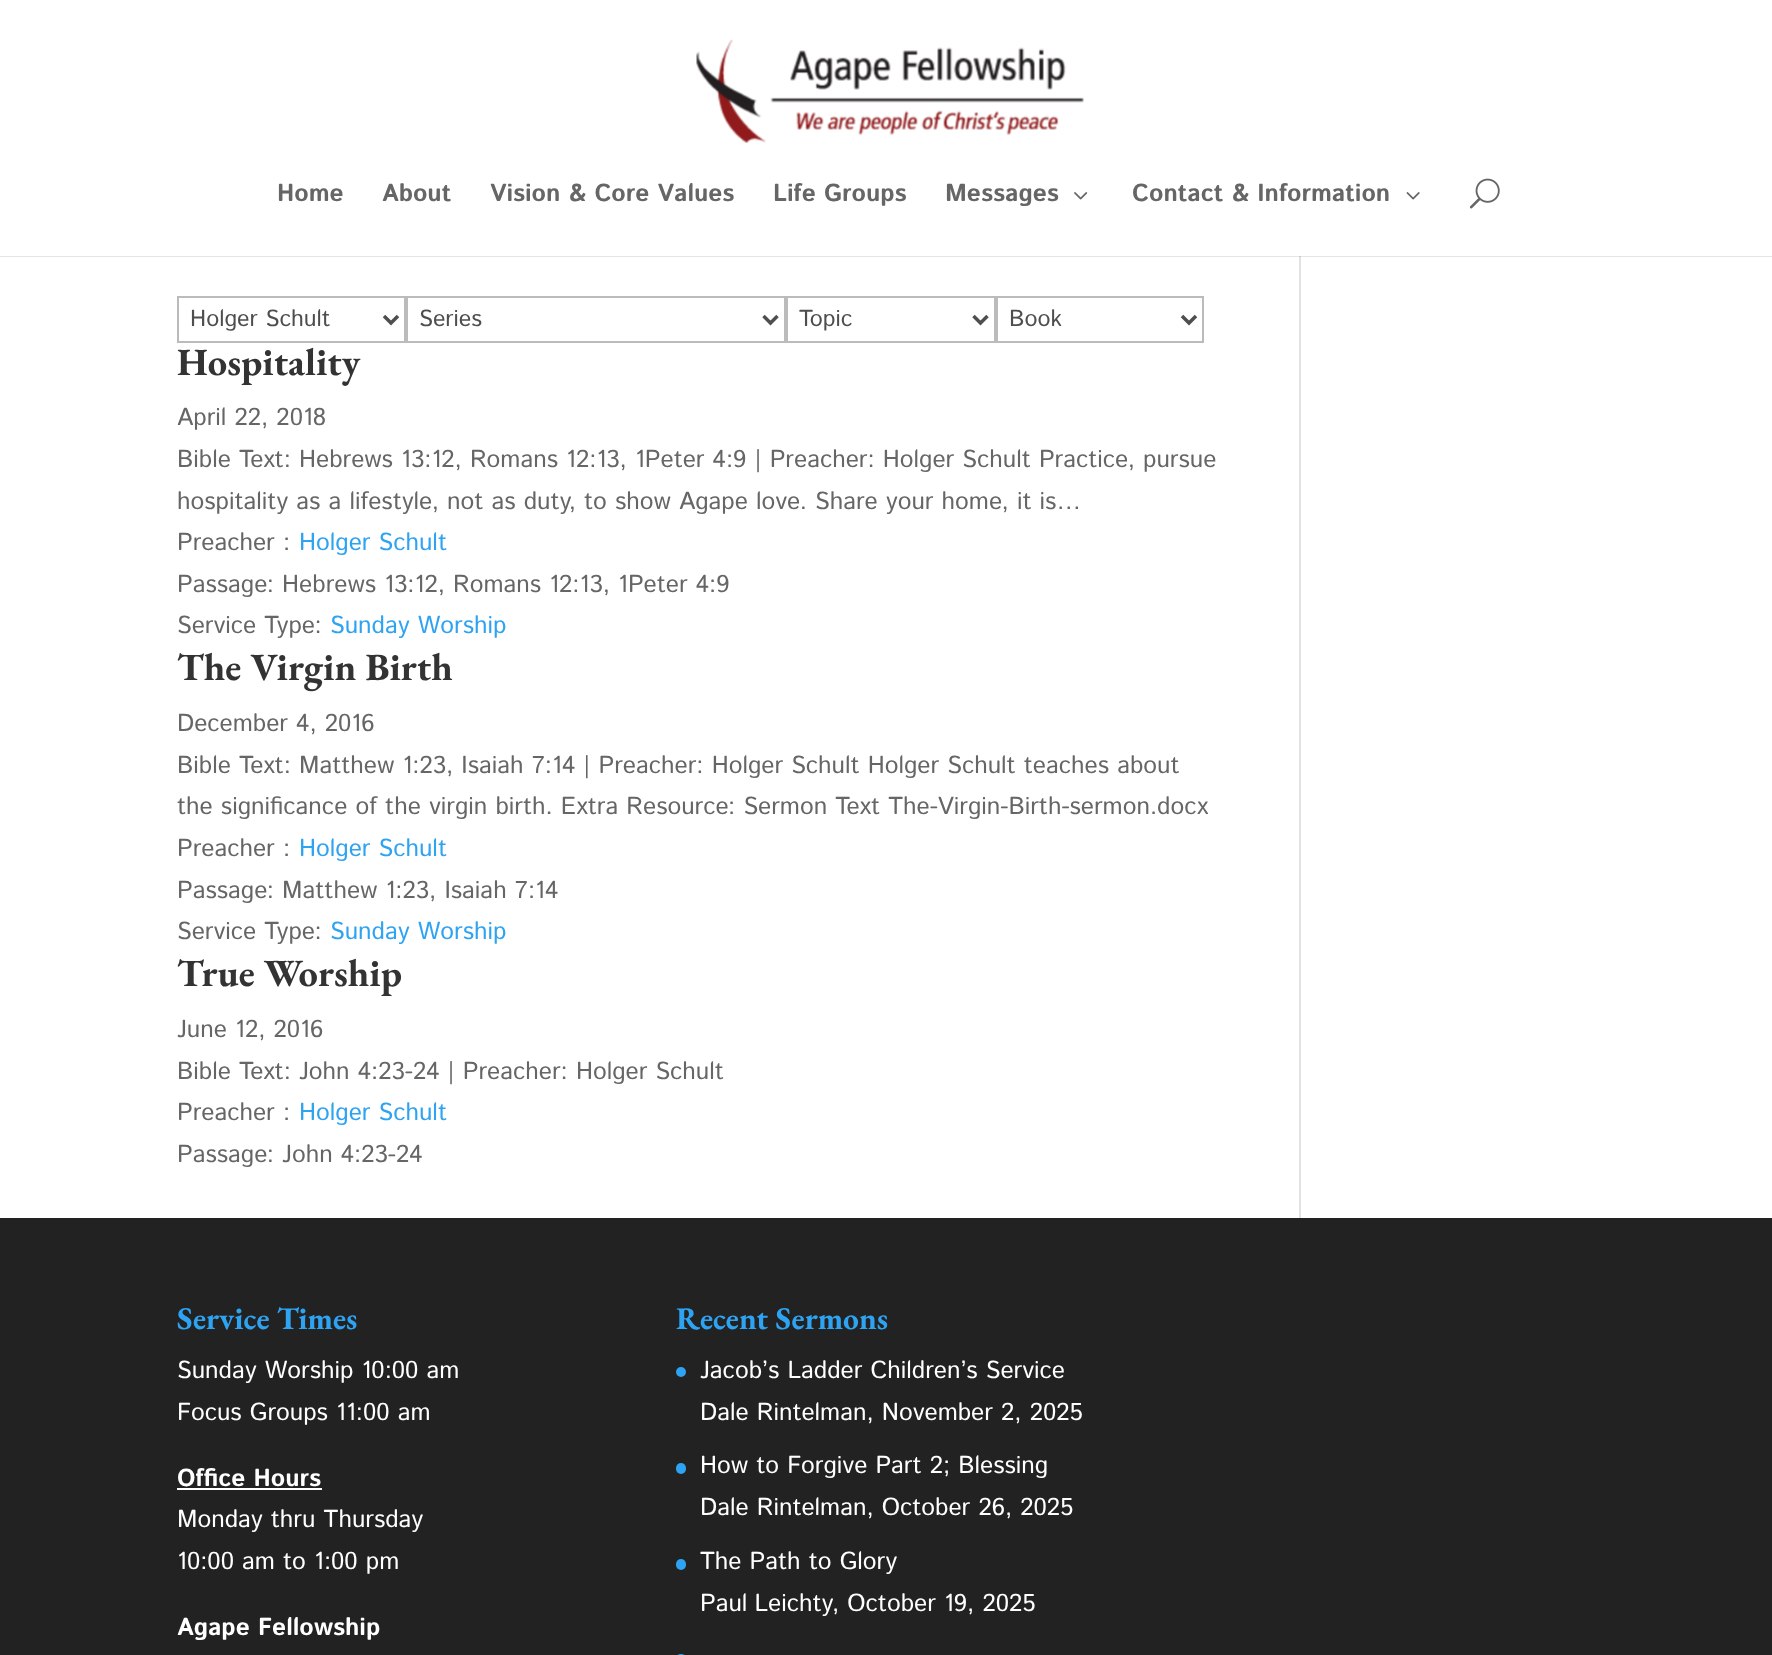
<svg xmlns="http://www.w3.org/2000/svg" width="1772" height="1655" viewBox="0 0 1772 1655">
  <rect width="100%" height="100%" fill="#fff"/>
  <path d="M1299 256h2v962H1299z" fill="#e2e2e2"/>
  <path d="M0 256V257H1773V2V256Z" fill="#0000001a"/>
  <image x="696" y="39" width="388" height="105" href="img/1.png"/>
  <image x="1074" y="192" width="14" height="8" href="img/2.png"/>
  <image x="1406" y="192" width="14" height="8" href="img/3.png"/>
  <image x="1469" y="178" width="31" height="31" href="img/4.png"/>
  <path d="M178 297h227v45H178z" fill="none" stroke="#bbb" stroke-width="2"/>
  <path d="M384 316L391 323L398 316" fill="none" stroke="#4e4e4e" stroke-width="3.5"/>
  <path d="M407 297h378v45H407z" fill="none" stroke="#bbb" stroke-width="2"/>
  <path d="M763.5 316L770.5 323L777.5 316" fill="none" stroke="#4e4e4e" stroke-width="3.5"/>
  <path d="M787 297h208v45H787z" fill="none" stroke="#bbb" stroke-width="2"/>
  <path d="M973.5 316L980.5 323L987.5 316" fill="none" stroke="#4e4e4e" stroke-width="3.5"/>
  <path d="M997 297h206v45H997z" fill="none" stroke="#bbb" stroke-width="2"/>
  <path d="M1182 316L1189 323L1196 316" fill="none" stroke="#4e4e4e" stroke-width="3.5"/>
  <path d="M0 1218h1772v437H0z" fill="#222"/>
  <path d="M177 1488h145v2H177z" fill="#fff"/>
  <circle cx="681" cy="1372" r="5" fill="#2ea3f2"/>
  <rect x="676" y="1463" width="10" height="11" rx="5" fill="#2ea3f2"/>
  <rect x="676" y="1559" width="10" height="11" rx="5" fill="#2ea3f2"/>
  <rect x="676" y="1654" width="10" height="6" rx="5" fill="#2ea3f2"/>
  <g font-family="Istok Web" font-size="24.5" font-weight="bold" fill="#666">
    <text x="277" y="201">Home</text>
    <text x="382" y="201">About</text>
    <text x="490" y="201">Vision &amp; Core Values</text>
    <text x="773" y="201">Life Groups</text>
    <text x="945" y="201">Messages</text>
    <text x="1132" y="201">Contact &amp; Information</text>
  </g>
  <g font-family="Istok Web" font-size="23.25" fill="#4e4e4e">
    <text x="190" y="326">Holger Schult</text>
    <text x="419" y="326">Series</text>
    <text x="799" y="326">Topic</text>
    <text x="1009" y="326">Book</text>
  </g>
  <text x="177" y="375" font-family="EB Garamond" font-size="38.5" font-weight="bold" fill="#333">Hospitality</text>
  <g font-family="Istok Web" font-size="24.5" fill="#666">
    <text x="177" y="425">April 22, 2018</text>
    <text x="177" y="467">Bible Text: Hebrews 13:12, Romans 12:13, 1Peter 4:9 | Preacher: Holger Schult Practice, pursue</text>
    <text x="177" y="509">hospitality as a lifestyle, not as duty, to show Agape love. Share your home, it is…</text>
    <text x="177" y="550">Preacher :</text>
  </g>
  <text x="299" y="550" font-family="Istok Web" font-size="24.5" fill="#2ea3f2">Holger Schult</text>
  <g font-family="Istok Web" font-size="24.5" fill="#666">
    <text x="177" y="592">Passage: Hebrews 13:12, Romans 12:13, 1Peter 4:9</text>
    <text x="177" y="633">Service Type:</text>
  </g>
  <text x="330" y="633" font-family="Istok Web" font-size="24.5" fill="#2ea3f2">Sunday Worship</text>
  <text x="177" y="680" font-family="EB Garamond" font-size="38.5" font-weight="bold" fill="#333">The Virgin Birth</text>
  <g font-family="Istok Web" font-size="24.5" fill="#666">
    <text x="177" y="731">December 4, 2016</text>
    <text x="177" y="773">Bible Text: Matthew 1:23, Isaiah 7:14 | Preacher: Holger Schult Holger Schult teaches about</text>
    <text x="177" y="814">the significance of the virgin birth. Extra Resource: Sermon Text The-Virgin-Birth-sermon.docx</text>
    <text x="177" y="856">Preacher :</text>
  </g>
  <text x="299" y="856" font-family="Istok Web" font-size="24.5" fill="#2ea3f2">Holger Schult</text>
  <g font-family="Istok Web" font-size="24.5" fill="#666">
    <text x="177" y="898">Passage: Matthew 1:23, Isaiah 7:14</text>
    <text x="177" y="939">Service Type:</text>
  </g>
  <text x="330" y="939" font-family="Istok Web" font-size="24.5" fill="#2ea3f2">Sunday Worship</text>
  <text x="177" y="986" font-family="EB Garamond" font-size="38.5" font-weight="bold" fill="#333">True Worship</text>
  <g font-family="Istok Web" font-size="24.5" fill="#666">
    <text x="177" y="1037">June 12, 2016</text>
    <text x="177" y="1079">Bible Text: John 4:23-24 | Preacher: Holger Schult</text>
    <text x="177" y="1120">Preacher :</text>
  </g>
  <text x="299" y="1120" font-family="Istok Web" font-size="24.5" fill="#2ea3f2">Holger Schult</text>
  <text x="177" y="1162" font-family="Istok Web" font-size="24.5" fill="#666">Passage: John 4:23-24</text>
  <text x="177" y="1329" font-family="EB Garamond" font-size="31.5" font-weight="bold" fill="#2ea3f2">Service Times</text>
  <g font-family="Istok Web" font-size="24.5" fill="#fff">
    <text x="177" y="1378">Sunday Worship 10:00 am</text>
    <text x="177" y="1420">Focus Groups 11:00 am</text>
  </g>
  <text x="177" y="1486" font-family="Istok Web" font-size="24.5" font-weight="bold" fill="#fff">Office Hours</text>
  <g font-family="Istok Web" font-size="24.5" fill="#fff">
    <text x="177" y="1527">Monday thru Thursday</text>
    <text x="177" y="1569">10:00 am to 1:00 pm</text>
  </g>
  <text x="177" y="1635" font-family="Istok Web" font-size="24.5" font-weight="bold" fill="#fff">Agape Fellowship</text>
  <text x="676" y="1329" font-family="EB Garamond" font-size="31.5" font-weight="bold" fill="#2ea3f2">Recent Sermons</text>
  <g font-family="Istok Web" font-size="24.5" fill="#fff">
    <text x="700" y="1378">Jacob’s Ladder Children’s Service</text>
    <text x="700" y="1420">Dale Rintelman, November 2, 2025</text>
    <text x="700" y="1473">How to Forgive Part 2; Blessing</text>
    <text x="700" y="1515">Dale Rintelman, October 26, 2025</text>
    <text x="700" y="1569">The Path to Glory</text>
    <text x="700" y="1611" word-spacing="-1">Paul Leichty</text>
    <text x="832" y="1611">, October 19, 2025</text>
  </g>
</svg>
